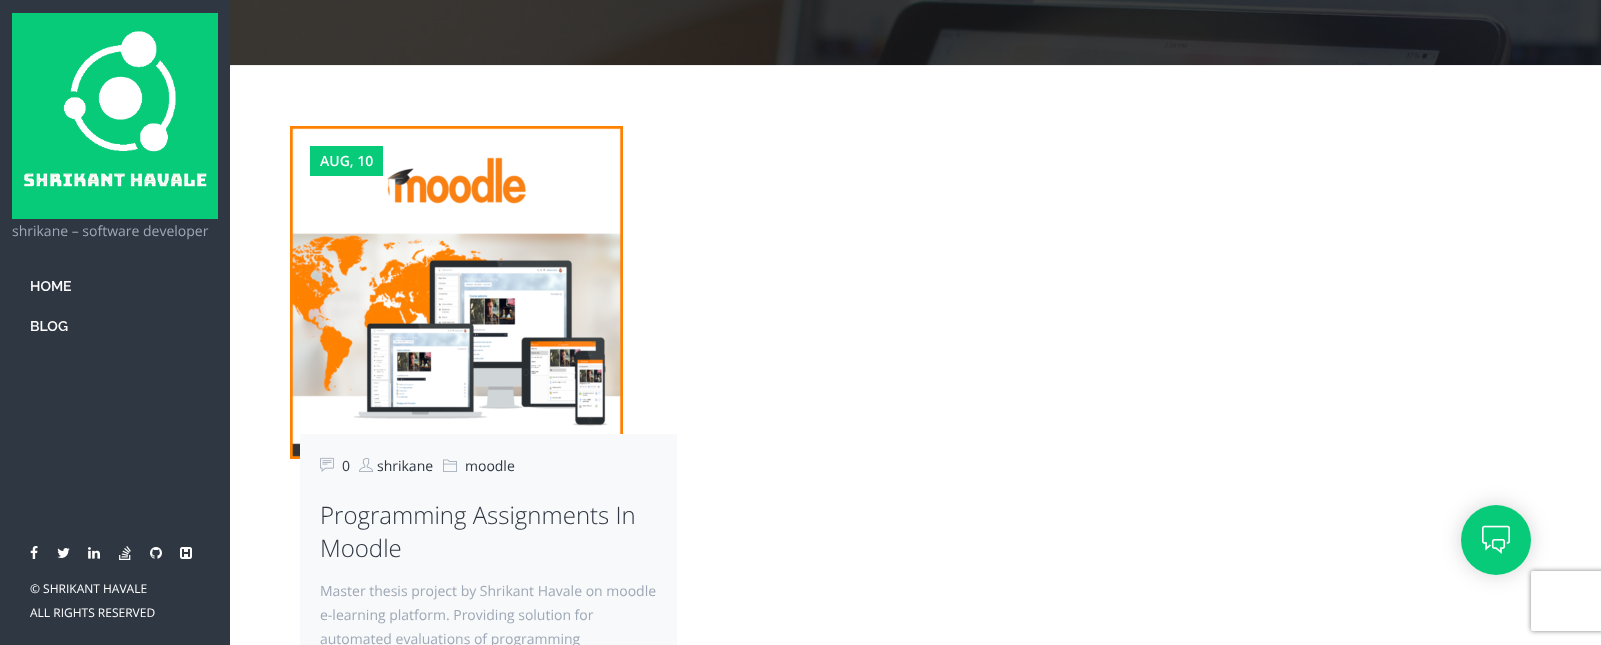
<svg xmlns="http://www.w3.org/2000/svg" width="1601" height="645" viewBox="0 0 1601 645">
  <defs>
    <clipPath id="clip1"><path d="M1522 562H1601V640H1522ZM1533 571H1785C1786 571 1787 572 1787 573V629C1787 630 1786 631 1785 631H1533C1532 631 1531 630 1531 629V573C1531 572 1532 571 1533 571Z" clip-rule="evenodd"/></clipPath>
  </defs>
  <rect width="100%" height="100%" fill="#fff"/>
  <path d="M0 0h230v645H0z" fill="#2f3742"/>
  <image x="12" y="13" width="206" height="206" href="img/1.png"/>
  <image x="30" y="546" width="8" height="13" href="img/2.png"/>
  <image x="57" y="548" width="13" height="10" href="img/3.png"/>
  <image x="88" y="547" width="12" height="12" href="img/4.png"/>
  <image x="119" y="546" width="12" height="14" href="img/5.png"/>
  <image x="150" y="547" width="12" height="12" href="img/6.png"/>
  <image x="180" y="547" width="12" height="12" href="img/7.png"/>
  <image x="230" y="0" width="1371" height="65" href="img/8.png"/>
  <path d="M230 65h1371v1H230z" fill="#eee"/>
  <image x="290" y="126" width="333" height="333" href="img/9.png"/>
  <path d="M310 146h73v30H310z" fill="#07cb79"/>
  <path d="M300 434h377v211H300z" fill="#f8f9fa"/>
  <image x="320" y="457" width="14" height="15" href="img/10.png"/>
  <image x="359" y="457" width="14" height="15" href="img/11.png"/>
  <image x="443" y="459" width="14" height="13" href="img/12.png"/>
  <rect x="1461" y="505" width="70" height="70" rx="35" fill="#0000002b" filter="blur(10px)"/>
  <g clip-path="url(#clip1)">
    <rect x="1531" y="571" width="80" height="60" rx="2" fill="#808080" filter="blur(2.5px)"/>
  </g>
  <circle cx="1496" cy="540" r="35" fill="#07cb79"/>
  <image x="1482" y="525" width="28" height="29" href="img/13.png"/>
  <text x="12" y="236" font-family="Open Sans" font-size="14" fill="#9ea8b6">shrikane – software developer</text>
  <g font-family="Raleway" font-size="14" font-weight="600" fill="#fff">
    <text x="30" y="291">HOME</text>
    <text x="30" y="331">BLOG</text>
  </g>
  <g font-family="Open Sans" font-size="12" fill="#fff">
    <text x="30" y="593">© SHRIKANT HAVALE</text>
    <text x="30" y="617">ALL RIGHTS RESERVED</text>
  </g>
  <text x="320" y="166" font-family="Open Sans" font-size="14" font-weight="600" fill="#fff">AUG, 10</text>
  <g font-family="Open Sans" font-size="14" fill="#2f3742">
    <text x="342" y="471">0</text>
    <text x="377" y="471">shrikane</text>
    <text x="465" y="471">moodle</text>
  </g>
  <g font-family="Open Sans" font-size="24" font-weight="300" fill="#2f3742">
    <text x="320" y="524">Programming Assignments In</text>
    <text x="320" y="557">Moodle</text>
  </g>
  <g font-family="Open Sans" font-size="14" fill="#9ea8b6">
    <text x="320" y="596">Master thesis project by Shrikant Havale on moodle</text>
    <text x="320" y="620">e-learning platform. Providing solution for</text>
    <text x="320" y="644">automated evaluations of programming</text>
  </g>
</svg>
